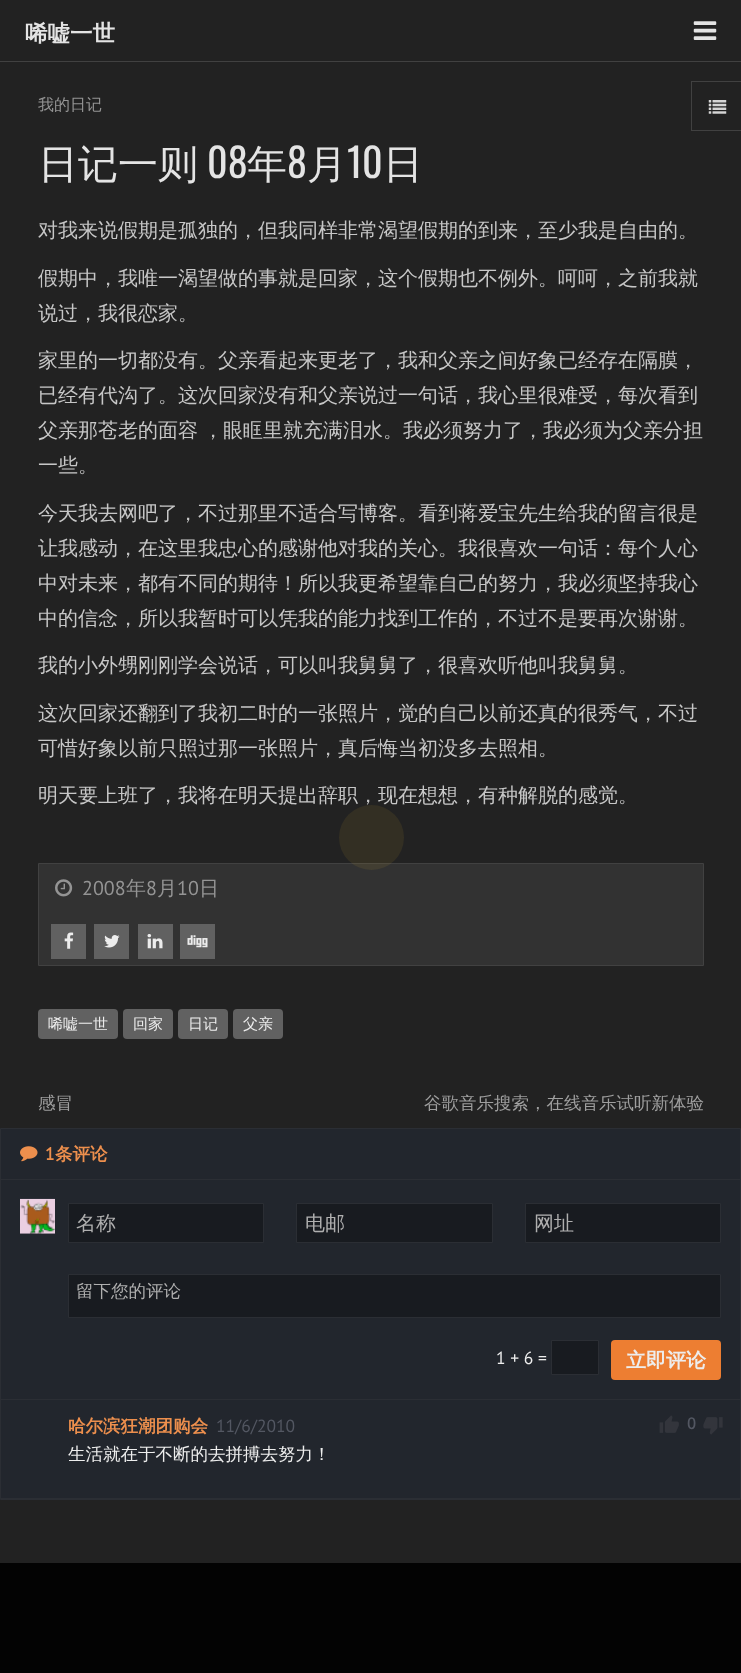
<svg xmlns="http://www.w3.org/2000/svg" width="741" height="1673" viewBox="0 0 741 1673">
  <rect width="100%" height="100%" fill="#030303"/>
  <path d="M0 0h741v1563H0z" fill="#222"/>
  <path d="M0 61h741v1H0z" fill="#414141"/>
  <image x="693" y="21" width="24" height="19" href="img/1.png"/>
  <path d="M38.5 863.5h665v102H38.5z" fill="#323232" stroke="#414141"/>
  <image x="55" y="879" width="18" height="18" href="img/2.png"/>
  <path d="M51 924h35v35H51z" fill="#616161"/>
  <image x="64" y="932" width="10" height="17" href="img/3.png"/>
  <path d="M94 924h35v35H94z" fill="#616161"/>
  <image x="104" y="935" width="16" height="13" href="img/4.png"/>
  <path d="M138 924h35v35H138z" fill="#616161"/>
  <image x="147" y="934" width="16" height="15" href="img/5.png"/>
  <path d="M180 924h35v35H180z" fill="#616161"/>
  <image x="187" y="935" width="21" height="13" href="img/6.png"/>
  <rect x="38" y="1009" width="80" height="30" rx="4" fill="#616161"/>
  <rect x="123" y="1009" width="50" height="30" rx="4" fill="#616161"/>
  <rect x="178" y="1009" width="50" height="30" rx="4" fill="#616161"/>
  <rect x="233" y="1009" width="50" height="30" rx="4" fill="#616161"/>
  <path d="M1 1129h739v369H1z" fill="#22262d"/>
  <path d="M0.5 1128.5h740v371H0.5z" fill="none" stroke="#2b2e34"/>
  <image x="20" y="1146" width="18" height="16" href="img/7.png"/>
  <path d="M1 1179h739v1H1z" fill="#2b2e34"/>
  <image x="20" y="1198" width="35" height="36" href="img/8.png"/>
  <path d="M68.5 1203.5h195v39H68.5z" fill="#181b20" stroke="#2b2e34"/>
  <path d="M296.5 1203.5h196v39H296.5z" fill="#181b20" stroke="#2b2e34"/>
  <path d="M525.5 1203.5h195v39H525.5z" fill="#181b20" stroke="#2b2e34"/>
  <path d="M68.5 1274.5h652v43H68.5z" fill="#181b20" stroke="#2b2e34"/>
  <path d="M551.5 1340.5h47v34H551.5z" fill="#181b20" stroke="#2b2e34"/>
  <rect x="611" y="1340" width="110" height="40" rx="4" fill="#ed7e32"/>
  <path d="M1 1399h739v1H1z" fill="#2b2e34"/>
  <path d="M1 1498h739v1H1z" fill="#2b2e34"/>
  <image x="659" y="1415" width="20" height="18" href="img/9.png"/>
  <image x="703" y="1417" width="20" height="18" href="img/10.png"/>
  <path d="M691 81h50v1H691z" fill="#414141"/>
  <path d="M691 130h50v1H691z" fill="#414141"/>
  <path d="M691 81h1v50H691z" fill="#414141"/>
  <image x="708" y="100" width="19" height="14" href="img/11.png"/>
  <path d="M339 703h65v102H339z" fill="#22222214"/>
  <circle cx="371.5" cy="837.5" r="32.5" fill="#ffcd3814"/>
  <text x="25" y="41" font-family="WenQuanYi Zen Hei" font-size="22.5" font-weight="bold" fill="#e4e4e4">唏嘘一世</text>
  <text x="38" y="110" font-family="WenQuanYi Zen Hei" font-size="16" font-weight="500" fill="#949494">我的日记</text>
  <text x="38" y="178" font-family="WenQuanYi Zen Hei" font-size="40" font-weight="500" fill="#e4e4e4">日记一则</text>
  <text x="207" y="178" font-family="Oswald" font-size="40" fill="#e4e4e4">08</text>
  <text x="247" y="178" font-family="WenQuanYi Zen Hei" font-size="40" font-weight="500" fill="#e4e4e4">年</text>
  <text x="287" y="178" font-family="Oswald" font-size="40" fill="#e4e4e4">8</text>
  <text x="307" y="178" font-family="WenQuanYi Zen Hei" font-size="40" font-weight="500" fill="#e4e4e4">月</text>
  <text x="347" y="178" font-family="Oswald" font-size="40" fill="#e4e4e4">10</text>
  <text x="383" y="178" font-family="WenQuanYi Zen Hei" font-size="40" font-weight="500" fill="#e4e4e4">日</text>
  <g font-family="WenQuanYi Zen Hei" font-size="20" font-weight="500" fill="#c7c7c7">
    <text x="38" y="237">对我来说假期是孤独的，但我同样非常渴望假期的到来，至少我是自由的。</text>
    <text x="38" y="285">假期中，我唯一渴望做的事就是回家，这个假期也不例外。呵呵，之前我就</text>
    <text x="38" y="320">说过，我很恋家。</text>
    <text x="38" y="367">家里的一切都没有。父亲看起来更老了，我和父亲之间好象已经存在隔膜，</text>
    <text x="38" y="402">已经有代沟了。这次回家没有和父亲说过一句话，我心里很难受，每次看到</text>
    <text x="38" y="437" word-spacing="-1">父亲那苍老的面容 ，眼眶里就充满泪水。我必须努力了，我必须为父亲分担</text>
    <text x="38" y="472">一些。</text>
    <text x="38" y="520">今天我去网吧了，不过那里不适合写博客。看到蒋爱宝先生给我的留言很是</text>
    <text x="38" y="555">让我感动，在这里我忠心的感谢他对我的关心。我很喜欢一句话：每个人心</text>
    <text x="38" y="590">中对未来，都有不同的期待！所以我更希望靠自己的努力，我必须坚持我心</text>
    <text x="38" y="625">中的信念，所以我暂时可以凭我的能力找到工作的，不过不是要再次谢谢。</text>
    <text x="38" y="672">我的小外甥刚刚学会说话，可以叫我舅舅了，很喜欢听他叫我舅舅。</text>
    <text x="38" y="720">这次回家还翻到了我初二时的一张照片，觉的自己以前还真的很秀气，不过</text>
    <text x="38" y="755">可惜好象以前只照过那一张照片，真后悔当初没多去照相。</text>
    <text x="38" y="802">明天要上班了，我将在明天提出辞职，现在想想，有种解脱的感觉。</text>
  </g>
  <text x="82" y="895" font-family="PT Sans" font-size="20" fill="#949494">2008</text>
  <text x="126" y="895" font-family="WenQuanYi Zen Hei" font-size="20" font-weight="500" fill="#949494">年</text>
  <text x="146" y="895" font-family="PT Sans" font-size="20" fill="#949494">8</text>
  <text x="157" y="895" font-family="WenQuanYi Zen Hei" font-size="20" font-weight="500" fill="#949494">月</text>
  <text x="177" y="895" font-family="PT Sans" font-size="20" fill="#949494">10</text>
  <text x="199" y="895" font-family="WenQuanYi Zen Hei" font-size="20" font-weight="500" fill="#949494">日</text>
  <g font-family="WenQuanYi Zen Hei" font-size="15" font-weight="500" fill="#ededed">
    <text x="48" y="1029">唏嘘一世</text>
    <text x="133" y="1029">回家</text>
    <text x="188" y="1029">日记</text>
    <text x="243" y="1029">父亲</text>
  </g>
  <g font-family="WenQuanYi Zen Hei" font-size="17.5" font-weight="500" fill="#9f9f9f">
    <text x="38" y="1109">感冒</text>
    <text x="424" y="1109">谷歌音乐搜索，在线音乐试听新体验</text>
  </g>
  <text x="45" y="1160" font-family="PT Sans" font-size="17.5" font-weight="bold" fill="#ed8f4d">1</text>
  <text x="55" y="1160" font-family="WenQuanYi Zen Hei" font-size="17.5" font-weight="bold" fill="#ed8f4d">条评论</text>
  <g font-family="WenQuanYi Zen Hei" font-size="20" font-weight="500" fill="#afafaf">
    <text x="76" y="1230">名称</text>
    <text x="305" y="1230">电邮</text>
    <text x="534" y="1230">网址</text>
  </g>
  <text x="76" y="1297" font-family="WenQuanYi Zen Hei" font-size="17.5" font-weight="500" fill="#afafaf">留下您的评论</text>
  <text x="496" y="1364" font-family="PT Sans" font-size="17.5" fill="#ededed">1 + 6 =</text>
  <text x="626" y="1367" font-family="WenQuanYi Zen Hei" font-size="20" font-weight="bold" fill="#ededed">立即评论</text>
  <text x="68" y="1432" font-family="WenQuanYi Zen Hei" font-size="17.5" font-weight="bold" fill="#ed8f4d">哈尔滨狂潮团购会</text>
  <text x="216" y="1432" font-family="PT Sans" font-size="17.5" fill="#535762">11/6/2010</text>
  <text x="687" y="1429" font-family="PT Sans" font-size="16" font-weight="bold" fill="#535762">0</text>
  <text x="68" y="1460" font-family="WenQuanYi Zen Hei" font-size="17.5" font-weight="500" fill="#ededed">生活就在于不断的去拼搏去努力！</text>
</svg>
